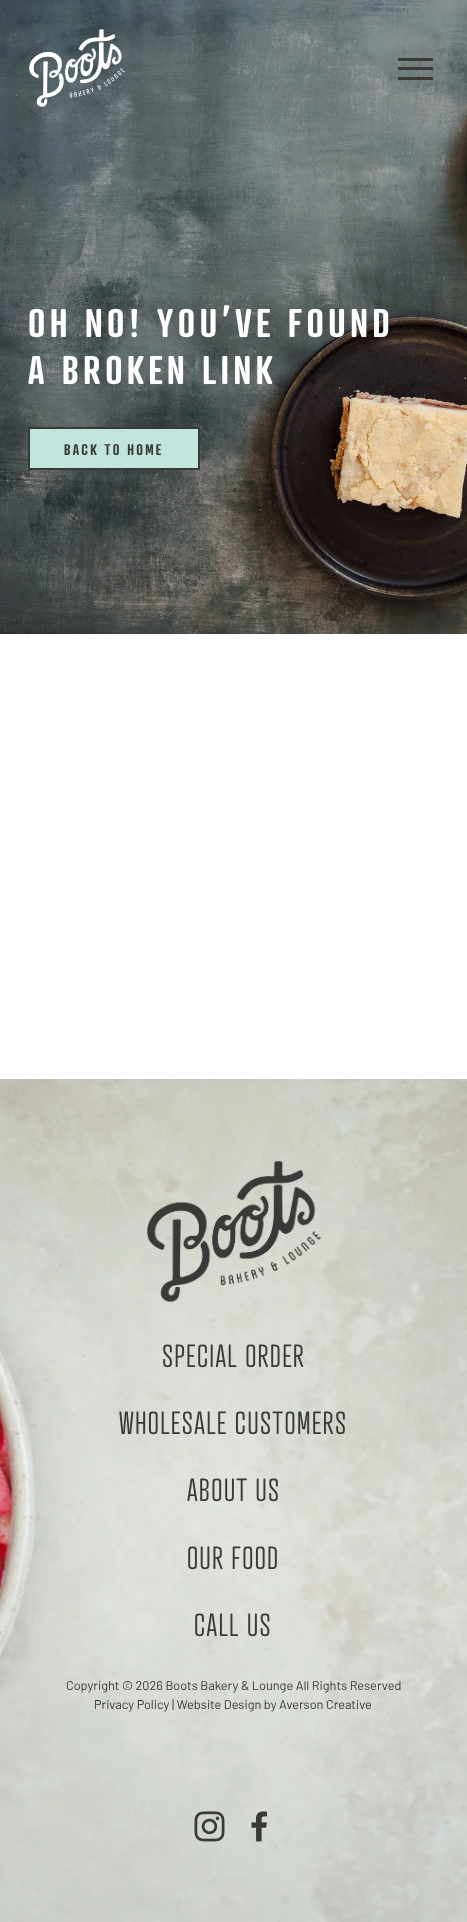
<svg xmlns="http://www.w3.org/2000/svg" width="467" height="1922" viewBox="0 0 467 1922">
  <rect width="100%" height="100%" fill="#fff"/>
  <image x="0" y="0" width="467" height="634" href="img/2.png"/>
  <image x="29" y="29" width="96" height="78" href="img/1.png"/>
  <path d="M398 58h35v3H398z" fill="#393938"/>
  <path d="M398 67h35v3H398z" fill="#393938"/>
  <path d="M398 77h35v3H398z" fill="#393938"/>
  <path d="M29 428h170v41H29z" fill="#c1e4dd" stroke="#393938" stroke-width="2"/>
  <image x="0" y="1079" width="467" height="843" href="img/3.png"/>
  <image x="146" y="1160" width="176" height="143" href="img/4.png"/>
  <image x="194" y="1811" width="31" height="31" href="img/5.png"/>
  <image x="251" y="1811" width="16" height="31" href="img/6.png"/>
  <g font-family="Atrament" font-size="38.75" font-weight="600" letter-spacing="4.6" fill="#fff">
    <text x="28" y="337">OH NO! YOU’VE FOUND</text>
    <text x="28" y="384">A BROKEN LINK</text>
  </g>
  <text x="64" y="455" font-family="Atrament" font-size="15" font-weight="600" letter-spacing="2.25" fill="#393938">BACK TO HOME</text>
  <g font-family="Atrament" font-size="31" font-weight="300" letter-spacing="1.5" fill="#393938">
    <text x="162" y="1367">SPECIAL ORDER</text>
    <text x="119" y="1434">WHOLESALE CUSTOMERS</text>
    <text x="187" y="1501">ABOUT US</text>
    <text x="187" y="1569">OUR FOOD</text>
    <text x="194" y="1636">CALL US</text>
  </g>
  <g font-family="Barlow" font-size="12.7" fill="#393938">
    <text x="66" y="1690">Copyright © 2026 Boots Bakery &amp; Lounge All Rights Reserved</text>
    <text x="94" y="1709">Privacy Policy | Website Design by Averson Creative</text>
  </g>
</svg>
